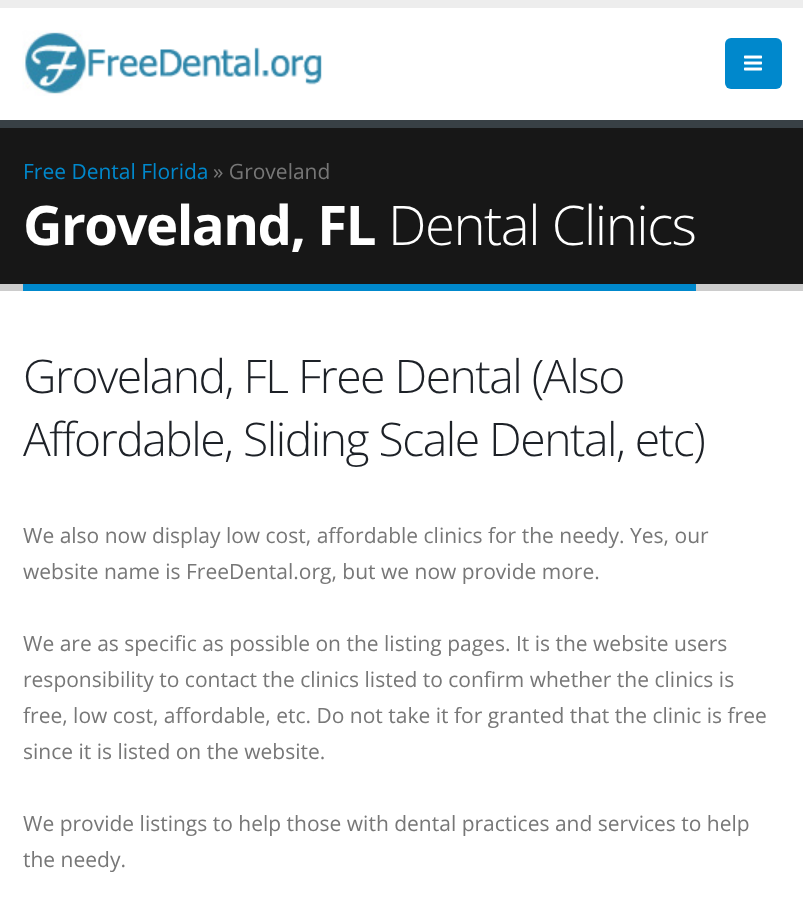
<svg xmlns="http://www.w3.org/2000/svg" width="803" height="918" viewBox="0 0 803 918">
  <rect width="100%" height="100%" fill="#fff"/>
  <path d="M0 0h803v8H0z" fill="#ededed"/>
  <image x="22" y="30" width="300" height="66" href="img/1.png"/>
  <rect x="725" y="38" width="57" height="51" rx="6" fill="#08c"/>
  <image x="744" y="55" width="18" height="16" href="img/2.png"/>
  <path d="M0 128h803v156H0z" fill="#171717"/>
  <path d="M0 120h803v8H0z" fill="#384045"/>
  <path d="M0 284h803v7H0z" fill="#ccc"/>
  <path d="M23 284h673v7H23z" fill="#08c"/>
  <text x="23" y="179" font-family="Open Sans" font-size="21" fill="#08c">Free Dental Florida</text>
  <text x="213" y="179" font-family="Open Sans" font-size="21" fill="#777">» Groveland</text>
  <text x="23" y="245" font-family="Open Sans" font-size="54.5" font-weight="bold" letter-spacing="-1.5" fill="#fff">Groveland, FL</text>
  <text x="388" y="245" font-family="Open Sans" font-size="54.5" font-weight="300" letter-spacing="-1.5" fill="#fff">Dental Clinics</text>
  <g font-family="Open Sans" font-size="46.25" font-weight="300" letter-spacing="-1.5" fill="#1d2127">
    <text x="23" y="393">Groveland, FL Free Dental (Also</text>
    <text x="23" y="456">Affordable, Sliding Scale Dental, etc)</text>
  </g>
  <g font-family="Open Sans" font-size="21" fill="#777">
    <text x="23" y="543">We also now display low cost, affordable clinics for the needy. Yes, our</text>
    <text x="23" y="579">website name is FreeDental.org, but we now provide more.</text>
    <text x="23" y="651">We are as specific as possible on the listing pages. It is the website users</text>
    <text x="23" y="687">responsibility to contact the clinics listed to confirm whether the clinics is</text>
    <text x="23" y="723">free, low cost, affordable, etc. Do not take it for granted that the clinic is free</text>
    <text x="23" y="759">since it is listed on the website.</text>
    <text x="23" y="831">We provide listings to help those with dental practices and services to help</text>
    <text x="23" y="867">the needy.</text>
  </g>
</svg>
